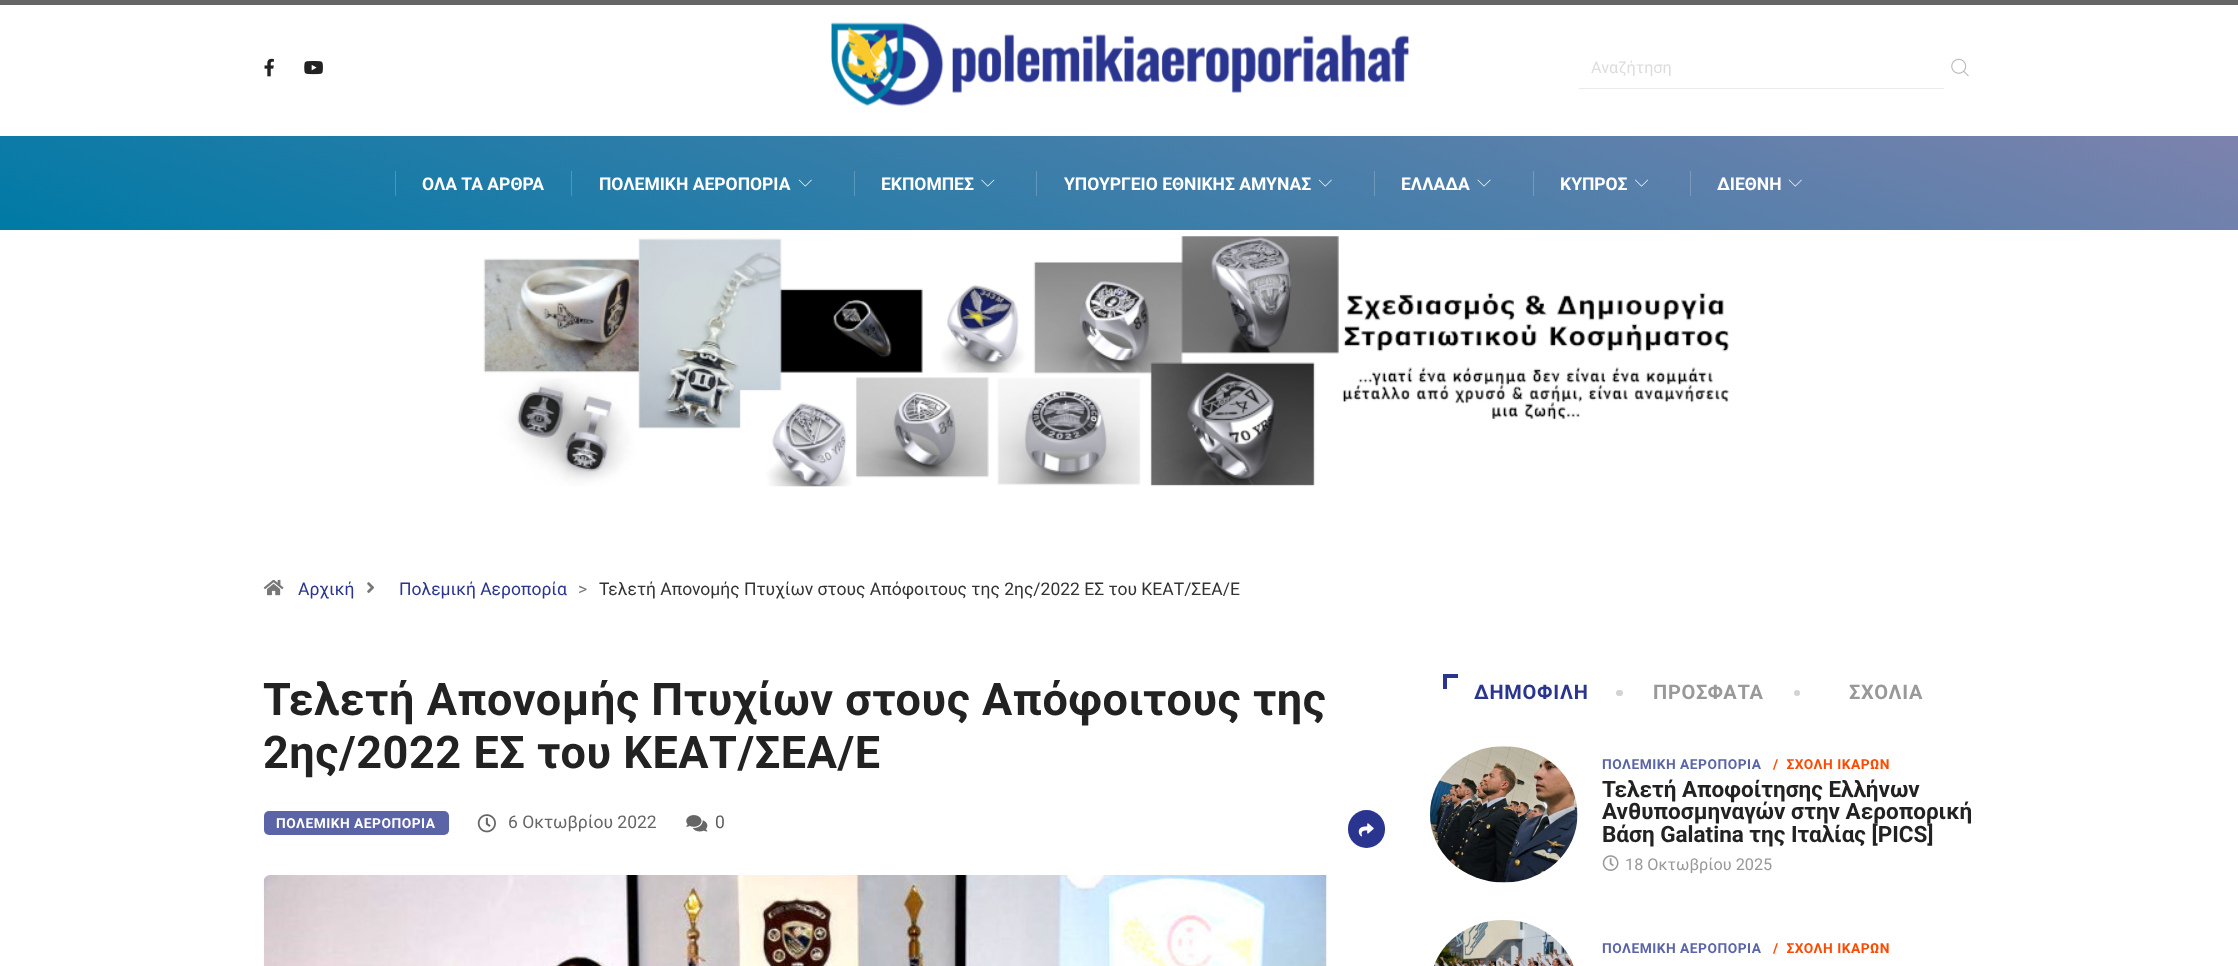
<svg xmlns="http://www.w3.org/2000/svg" width="2238" height="966" viewBox="0 0 2238 966">
  <defs>
    <linearGradient id="g1" gradientUnits="userSpaceOnUse" x1="973" y1="584" x2="1265" y2="-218"><stop offset="0" stop-color="#007aa6"/><stop offset="1" stop-color="#7c82ad"/></linearGradient>
    <linearGradient id="g2" gradientUnits="userSpaceOnUse" x1="973" y1="584" x2="1265" y2="-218"><stop offset="0" stop-color="#3395b8"/><stop offset="1" stop-color="#969bbd"/></linearGradient>
    <clipPath id="clip1"><path d="M1591 58h333v18H1591z"/></clipPath>
  </defs>
  <rect width="100%" height="100%" fill="#fff"/>
  <path d="M0 0h2238v5H0z" fill="#676666"/>
  <image x="264" y="58" width="10" height="19" href="img/1.png"/>
  <image x="304" y="61" width="19" height="14" href="img/2.png"/>
  <image x="831" y="22" width="578" height="85" href="img/3.png"/>
  <path d="M1579 88h365v1H1579z" fill="#eaeaea"/>
  <image x="1951" y="58" width="18" height="19" href="img/4.png"/>
  <path d="M0 136h2238v94H0z" fill="url(#g1)"/>
  <path d="M1690 171h1v25H1690z" fill="url(#g2)"/>
  <path d="M1533 171h1v25H1533z" fill="url(#g2)"/>
  <path d="M1374 171h1v25H1374z" fill="url(#g2)"/>
  <path d="M1036 171h1v25H1036z" fill="url(#g2)"/>
  <path d="M854 171h1v25H854z" fill="url(#g2)"/>
  <path d="M571 171h1v25H571z" fill="url(#g2)"/>
  <path d="M395 171h1v25H395z" fill="url(#g2)"/>
  <image x="798" y="179" width="14" height="8" href="img/5.png"/>
  <image x="981" y="179" width="14" height="8" href="img/6.png"/>
  <image x="1318" y="179" width="14" height="8" href="img/7.png"/>
  <image x="1477" y="179" width="14" height="8" href="img/8.png"/>
  <image x="1635" y="179" width="13" height="8" href="img/9.png"/>
  <image x="1788" y="179" width="14" height="8" href="img/10.png"/>
  <image x="483" y="236" width="1246" height="251" href="img/11.png"/>
  <image x="263" y="579" width="21" height="17" href="img/12.png"/>
  <image x="367" y="582" width="8" height="11" href="img/13.png"/>
  <rect x="264" y="811" width="185" height="24" rx="5" fill="#5b64a7"/>
  <image x="477" y="814" width="19" height="19" href="img/14.png"/>
  <image x="686" y="815" width="22" height="17" href="img/15.png"/>
  <rect x="1348" y="810" width="37" height="38" rx="18.5" fill="#2a3590"/>
  <image x="1358" y="823" width="16" height="14" href="img/16.png"/>
  <image x="263" y="875" width="1064" height="91" href="img/17.png"/>
  <path d="M1443 674h4v15H1443z" fill="#2a3590"/>
  <path d="M1443 674h15v4H1443z" fill="#2a3590"/>
  <rect x="1616" y="690" width="7" height="6" rx="3" fill="#d3d3d3"/>
  <circle cx="1797" cy="693" r="3" fill="#d3d3d3"/>
  <image x="1430" y="746" width="148" height="137" href="img/18.png"/>
  <image x="1602" y="855" width="17" height="16" href="img/19.png"/>
  <image x="1434" y="920" width="140" height="46" href="img/20.png"/>
  <g clip-path="url(#clip1)">
    <text x="1591" y="73" font-family="Roboto" font-size="16.25" fill="#ddd">Αναζήτηση</text>
  </g>
  <g font-family="Roboto" font-size="17.5" font-weight="bold" fill="#fff">
    <text x="422" y="190">ΟΛΑ ΤΑ ΑΡΘΡΑ</text>
    <text x="599" y="190">ΠΟΛΕΜΙΚΗ ΑΕΡΟΠΟΡΙΑ</text>
    <text x="881" y="190">ΕΚΠΟΜΠΕΣ</text>
    <text x="1064" y="190">ΥΠΟΥΡΓΕΙΟ ΕΘΝΙΚΗΣ ΑΜΥΝΑΣ</text>
    <text x="1401" y="190">ΕΛΛΑΔΑ</text>
    <text x="1560" y="190">ΚΥΠΡΟΣ</text>
    <text x="1717" y="190">ΔΙΕΘΝΗ</text>
  </g>
  <g font-family="Roboto" font-size="17.5" fill="#2a3590">
    <text x="298" y="595">Αρχική</text>
    <text x="399" y="595">Πολεμική Αεροπορία</text>
  </g>
  <text x="578" y="595" font-family="Roboto" font-size="17.5" fill="#777">&gt;</text>
  <text x="599" y="595" font-family="Roboto" font-size="17.5" fill="#333">Τελετή Απονομής Πτυχίων στους Απόφοιτους της 2ης/2022 ΕΣ του ΚΕΑΤ/ΣΕΑ/Ε</text>
  <g font-family="Roboto" font-size="45" font-weight="bold" letter-spacing="0.55" fill="#222">
    <text x="263" y="715">Τελετή Απονομής Πτυχίων στους Απόφοιτους της</text>
    <text x="263" y="768">2ης/2022 ΕΣ του ΚΕΑΤ/ΣΕΑ/Ε</text>
  </g>
  <text x="276" y="828" font-family="Roboto" font-size="13.75" font-weight="bold" letter-spacing="0.5" fill="#fff">ΠΟΛΕΜΙΚΗ ΑΕΡΟΠΟΡΙΑ</text>
  <text x="508" y="828" font-family="Roboto" font-size="17.5" fill="#666">6 Οκτωβρίου 2022</text>
  <text x="715" y="828" font-family="Roboto" font-size="17.5" fill="#5c5c5c">0</text>
  <text x="1474" y="699" font-family="Roboto" font-size="20" font-weight="bold" letter-spacing="0.75" fill="#2a3590">ΔΗΜΟΦΙΛΗ</text>
  <g font-family="Roboto" font-size="20" font-weight="bold" letter-spacing="0.75" fill="#999">
    <text x="1653" y="699">ΠΡΟΣΦΑΤΑ</text>
    <text x="1849" y="699">ΣΧΟΛΙΑ</text>
  </g>
  <text x="1602" y="769" font-family="Roboto" font-size="13.75" font-weight="bold" letter-spacing="0.5" fill="#5b64a7">ΠΟΛΕΜΙΚΗ ΑΕΡΟΠΟΡΙΑ</text>
  <text x="1773" y="769" font-family="Roboto" font-size="13.75" font-weight="bold" letter-spacing="0.5" fill="#fc4a00" xml:space="preserve">/  ΣΧΟΛΗ ΙΚΑΡΩΝ</text>
  <g font-family="Roboto" font-size="22.5" font-weight="bold" fill="#222">
    <text x="1602" y="797">Τελετή Αποφοίτησης Ελλήνων</text>
    <text x="1602" y="819">Ανθυποσμηναγών στην Αεροπορική</text>
    <text x="1602" y="842">Βάση Galatina της Ιταλίας [PICS]</text>
  </g>
  <text x="1625" y="870" font-family="Roboto" font-size="16.25" fill="#999">18 Οκτωβρίου 2025</text>
  <text x="1602" y="953" font-family="Roboto" font-size="13.75" font-weight="bold" letter-spacing="0.5" fill="#5b64a7">ΠΟΛΕΜΙΚΗ ΑΕΡΟΠΟΡΙΑ</text>
  <text x="1773" y="953" font-family="Roboto" font-size="13.75" font-weight="bold" letter-spacing="0.5" fill="#fc4a00" xml:space="preserve">/  ΣΧΟΛΗ ΙΚΑΡΩΝ</text>
</svg>
